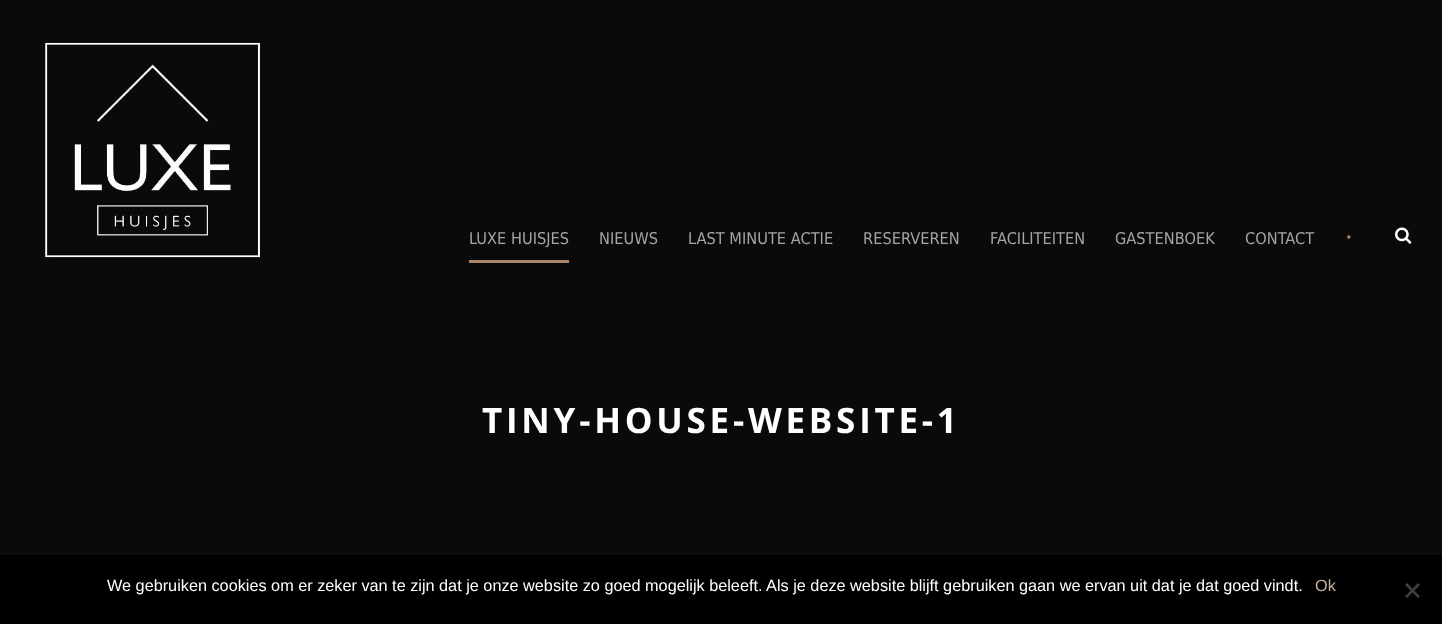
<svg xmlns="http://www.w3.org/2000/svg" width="1442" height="624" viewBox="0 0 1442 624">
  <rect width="100%" height="100%" fill="#0a0a0a"/>
  <image x="45" y="42" width="216" height="216" href="img/1.png"/>
  <image x="1395" y="227" width="17" height="17" href="img/2.png"/>
  <path d="M469 260h100v3H469z" fill="#aa8667"/>
  <path d="M0 555h1442v69H0z" fill="#000"/>
  <path d="M1418 583L1420 585L1407 598L1405 596.5Z" fill="#404040"/>
  <path d="M1405 585L1407 583L1420 596.5L1418 598Z" fill="#404040"/>
  <g font-family="DejaVu Sans" font-size="16.25" fill="#a5a5a5">
    <text x="469" y="244">LUXE HUISJES</text>
    <text x="599" y="244">NIEUWS</text>
    <text x="688" y="244">LAST MINUTE ACTIE</text>
    <text x="863" y="244">RESERVEREN</text>
    <text x="990" y="244">FACILITEITEN</text>
    <text x="1115" y="244">GASTENBOEK</text>
    <text x="1245" y="244">CONTACT</text>
  </g>
  <text x="1345" y="243" font-family="Merriweather" font-size="18" fill="#aa8667">•</text>
  <text x="482" y="433" font-family="Open Sans" font-size="35" font-weight="bold" letter-spacing="3.75" fill="#fff">TINY-HOUSE-WEBSITE-1</text>
  <text x="107" y="591" font-family="Liberation Sans" font-size="16.25" fill="#fff">We gebruiken cookies om er zeker van te zijn dat je onze website zo goed mogelijk beleeft. Als je deze website blijft gebruiken gaan we ervan uit dat je dat goed vindt.</text>
  <text x="1315" y="591" font-family="Liberation Sans" font-size="16.25" fill="#c6b29a">Ok</text>
</svg>
